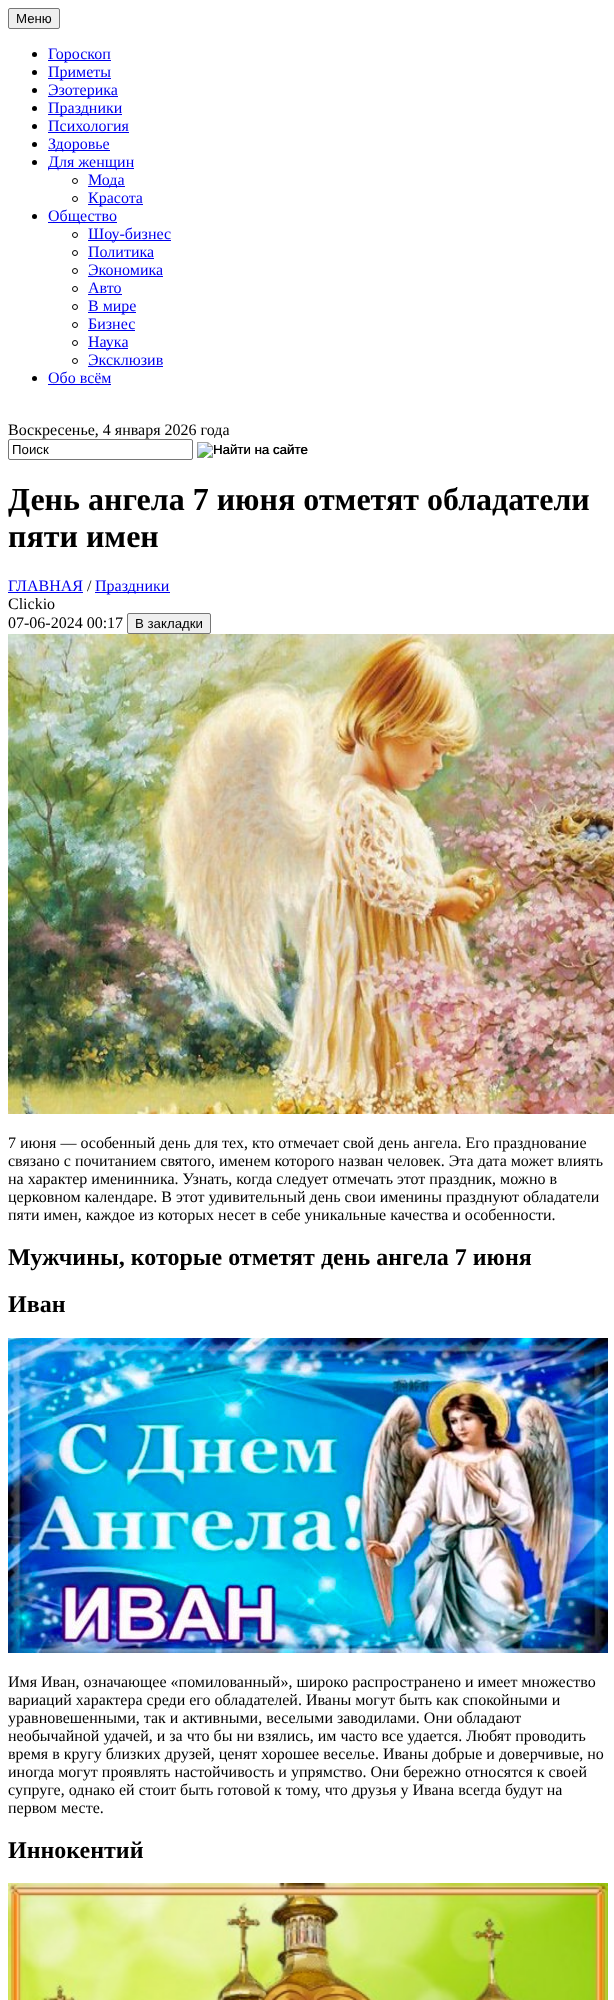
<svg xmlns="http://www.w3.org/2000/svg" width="614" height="2000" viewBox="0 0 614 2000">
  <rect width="100%" height="100%" fill="#fff"/>
  <rect x="8.5" y="8.5" width="51" height="20" rx="1.5" fill="#efefef" stroke="#767676"/>
  <circle cx="34.5" cy="54.5" r="2.5" fill="#000"/>
  <path d="M48 60h63v1H48z" fill="#00e"/>
  <circle cx="34.5" cy="72.5" r="2.5" fill="#000"/>
  <path d="M48 78h63v1H48z" fill="#00e"/>
  <circle cx="34.5" cy="90.5" r="2.5" fill="#000"/>
  <path d="M48 96h70v1H48z" fill="#00e"/>
  <circle cx="34.5" cy="108.5" r="2.5" fill="#000"/>
  <path d="M48 114h74v1H48z" fill="#00e"/>
  <circle cx="34.5" cy="126.5" r="2.5" fill="#000"/>
  <path d="M48 132h81v1H48z" fill="#00e"/>
  <circle cx="34.5" cy="144.5" r="2.5" fill="#000"/>
  <path d="M48 150h62v1H48z" fill="#00e"/>
  <circle cx="34.5" cy="162.5" r="2.5" fill="#000"/>
  <path d="M48 168h86v1H48z" fill="#00e"/>
  <circle cx="75" cy="181" r="2.5" fill="none" stroke="#000"/>
  <path d="M88 186h37v1H88z" fill="#00e"/>
  <circle cx="75" cy="199" r="2.5" fill="none" stroke="#000"/>
  <path d="M88 204h55v1H88z" fill="#00e"/>
  <circle cx="34.5" cy="216.5" r="2.5" fill="#000"/>
  <path d="M48 222h69v1H48z" fill="#00e"/>
  <circle cx="75" cy="235" r="2.5" fill="none" stroke="#000"/>
  <path d="M88 240h83v1H88z" fill="#00e"/>
  <circle cx="75" cy="253" r="2.5" fill="none" stroke="#000"/>
  <path d="M88 258h66v1H88z" fill="#00e"/>
  <circle cx="75" cy="271" r="2.5" fill="none" stroke="#000"/>
  <path d="M88 276h75v1H88z" fill="#00e"/>
  <circle cx="75" cy="289" r="2.5" fill="none" stroke="#000"/>
  <path d="M88 294h34v1H88z" fill="#00e"/>
  <circle cx="75" cy="307" r="2.5" fill="none" stroke="#000"/>
  <path d="M88 312h48v1H88z" fill="#00e"/>
  <circle cx="75" cy="325" r="2.5" fill="none" stroke="#000"/>
  <path d="M88 330h47v1H88z" fill="#00e"/>
  <circle cx="75" cy="343" r="2.5" fill="none" stroke="#000"/>
  <path d="M88 348h40v1H88z" fill="#00e"/>
  <circle cx="75" cy="361" r="2.5" fill="none" stroke="#000"/>
  <path d="M88 366h75v1H88z" fill="#00e"/>
  <circle cx="34.5" cy="378.5" r="2.5" fill="#000"/>
  <path d="M48 384h63v1H48z" fill="#00e"/>
  <rect x="8.5" y="439.5" width="184" height="20" rx="1.5" fill="none" stroke="#767676"/>
  <image x="197" y="442" width="111" height="16" href="img/1.png"/>
  <path d="M8 592h75v1H8z" fill="#00e"/>
  <path d="M95 592h75v1H95z" fill="#00e"/>
  <rect x="127.5" y="613.5" width="83" height="20" rx="1.5" fill="#efefef" stroke="#767676"/>
  <image x="8" y="634" width="606" height="480" href="img/2.png"/>
  <image x="8" y="1338" width="600" height="315" href="img/3.png"/>
  <image x="8" y="1883" width="600" height="117" href="img/4.png"/>
  <text x="16" y="23" font-family="Liberation Sans" font-size="13.25" fill="#000">Меню</text>
  <g font-family="Liberation Serif" font-size="16" fill="#00e">
    <text x="48" y="59">Гороскоп</text>
    <text x="48" y="77">Приметы</text>
    <text x="48" y="95">Эзотерика</text>
    <text x="48" y="113">Праздники</text>
    <text x="48" y="131">Психология</text>
    <text x="48" y="149">Здоровье</text>
    <text x="48" y="167">Для женщин</text>
    <text x="88" y="185">Мода</text>
    <text x="88" y="203">Красота</text>
    <text x="48" y="221">Общество</text>
    <text x="88" y="239">Шоу-бизнес</text>
    <text x="88" y="257">Политика</text>
    <text x="88" y="275">Экономика</text>
    <text x="88" y="293">Авто</text>
    <text x="88" y="311">В мире</text>
    <text x="88" y="329">Бизнес</text>
    <text x="88" y="347">Наука</text>
    <text x="88" y="365">Эксклюзив</text>
    <text x="48" y="383">Обо всём</text>
  </g>
  <text x="8" y="435" font-family="Liberation Serif" font-size="16" fill="#000">Воскресенье, 4 января 2026 года</text>
  <g font-family="Liberation Sans" font-size="13.25" fill="#000">
    <text x="12" y="454">Поиск</text>
    <text x="213" y="454">Найти на сайте</text>
  </g>
  <g font-family="Liberation Serif" font-size="32" font-weight="bold" fill="#000">
    <text x="8" y="510">День ангела 7 июня отметят обладатели</text>
    <text x="8" y="547">пяти имен</text>
  </g>
  <text x="8" y="591" font-family="Liberation Serif" font-size="16" fill="#00e">ГЛАВНАЯ</text>
  <text x="87" y="591" font-family="Liberation Serif" font-size="16" fill="#000">/</text>
  <text x="95" y="591" font-family="Liberation Serif" font-size="16" fill="#00e">Праздники</text>
  <g font-family="Liberation Serif" font-size="16" fill="#000">
    <text x="8" y="609">Clickio</text>
    <text x="8" y="628">07-06-2024 00:17</text>
  </g>
  <text x="135" y="628" font-family="Liberation Sans" font-size="13.25" fill="#000">В закладки</text>
  <g font-family="Liberation Serif" font-size="16" fill="#000">
    <text x="8" y="1148">7 июня — особенный день для тех, кто отмечает свой день ангела. Его празднование</text>
    <text x="8" y="1166">связано с почитанием святого, именем которого назван человек. Эта дата может влиять</text>
    <text x="8" y="1184">на характер именинника. Узнать, когда следует отмечать этот праздник, можно в</text>
    <text x="8" y="1202">церковном календаре. В этот удивительный день свои именины празднуют обладатели</text>
    <text x="8" y="1220">пяти имен, каждое из которых несет в себе уникальные качества и особенности.</text>
  </g>
  <g font-family="Liberation Serif" font-size="24" font-weight="bold" fill="#000">
    <text x="8" y="1265">Мужчины, которые отметят день ангела 7 июня</text>
    <text x="8" y="1312">Иван</text>
  </g>
  <g font-family="Liberation Serif" font-size="16" fill="#000">
    <text x="8" y="1687">Имя Иван, означающее «помилованный», широко распространено и имеет множество</text>
    <text x="8" y="1705">вариаций характера среди его обладателей. Иваны могут быть как спокойными и</text>
    <text x="8" y="1723">уравновешенными, так и активными, веселыми заводилами. Они обладают</text>
    <text x="8" y="1741">необычайной удачей, и за что бы ни взялись, им часто все удается. Любят проводить</text>
    <text x="8" y="1759">время в кругу близких друзей, ценят хорошее веселье. Иваны добрые и доверчивые, но</text>
    <text x="8" y="1777">иногда могут проявлять настойчивость и упрямство. Они бережно относятся к своей</text>
    <text x="8" y="1795">супруге, однако ей стоит быть готовой к тому, что друзья у Ивана всегда будут на</text>
    <text x="8" y="1813">первом месте.</text>
  </g>
  <text x="8" y="1858" font-family="Liberation Serif" font-size="24" font-weight="bold" fill="#000">Иннокентий</text>
</svg>
